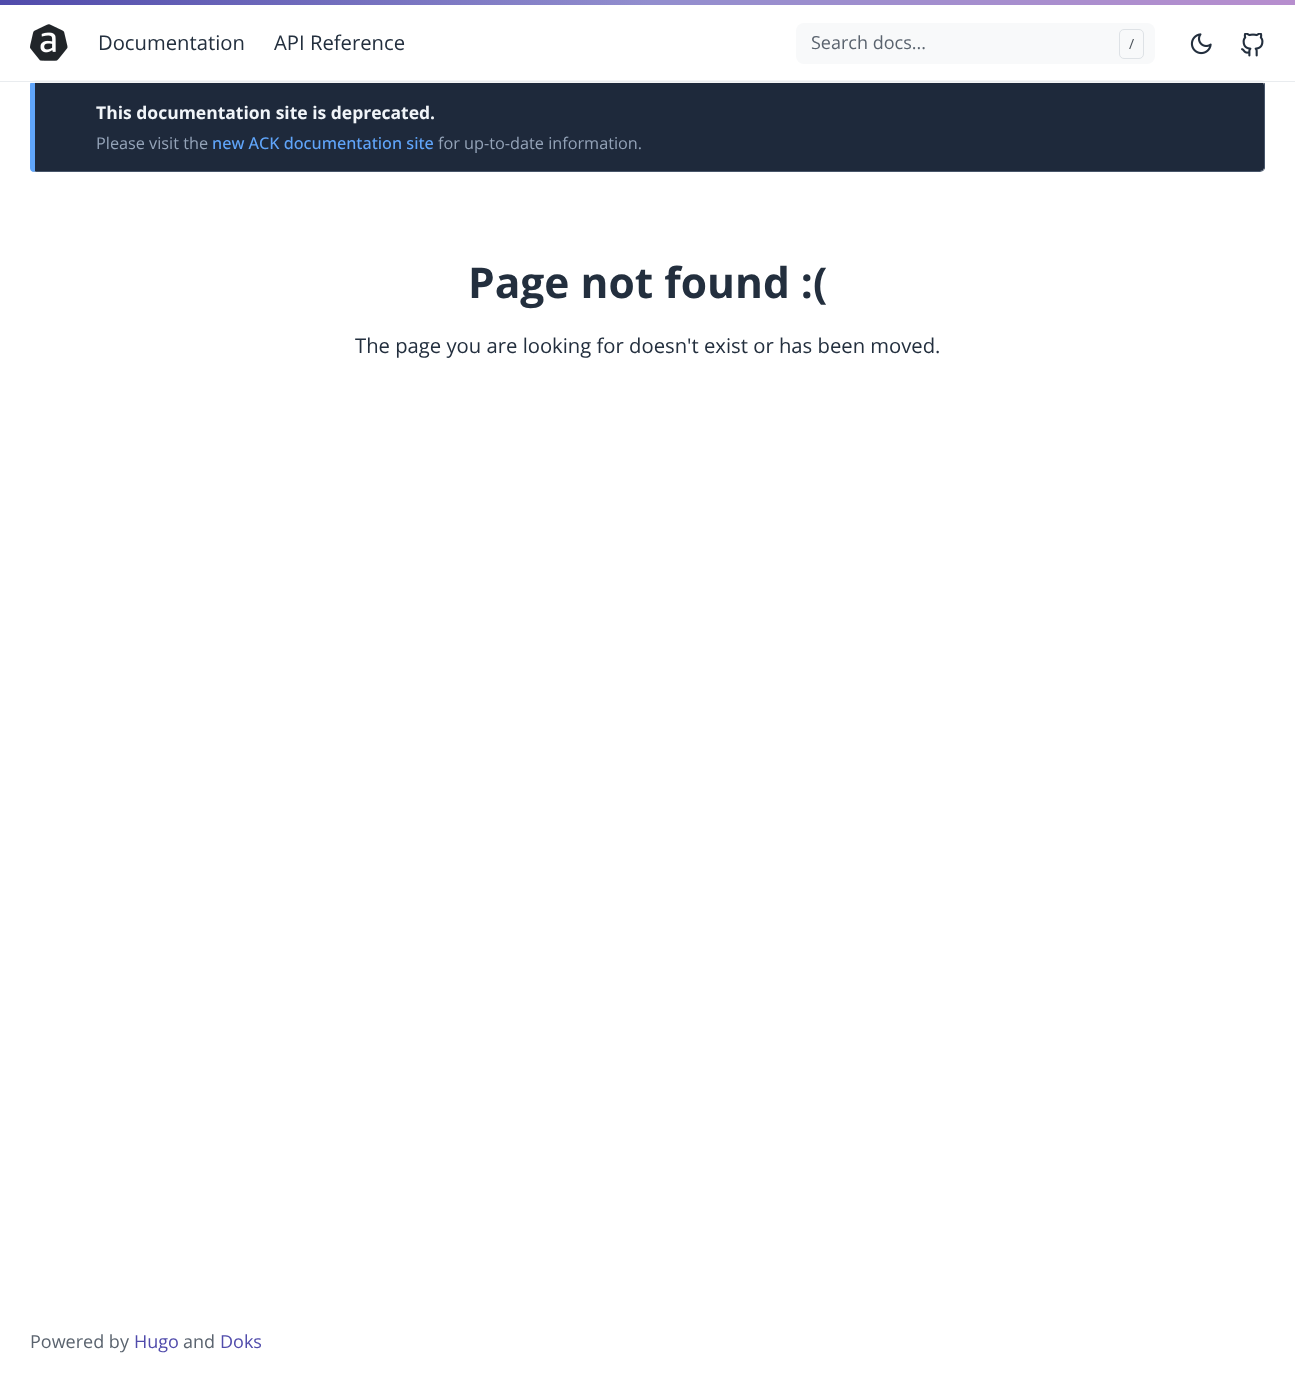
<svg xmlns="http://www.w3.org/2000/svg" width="1295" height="1378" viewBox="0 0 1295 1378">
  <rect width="100%" height="100%" fill="#fff"/>
  <image x="0" y="0" width="1295" height="5" href="img/1.png"/>
  <path d="M35 81H1260C1262 81 1264 83 1264 85V168C1264 170 1262 171 1260 171H35Z" fill="#1e293b"/>
  <path d="M35 80L32 81H35H1260L1263 82L1264 81C1263 80 1262 80 1260 80Z" fill="#475569"/>
  <path d="M1265 168V84L1264 81L1263 82C1264 83 1264 84 1264 85V168C1264 169 1264 170 1263 170V171C1264 170 1265 169 1265 168Z" fill="#475569"/>
  <path d="M1263 171L1260 172H33L36 171H1260L1263 170Z" fill="#475569"/>
  <path d="M30 85V168C30 170 31 171 33 172L36 171H35V81H32C31 81 30 83 30 85Z" fill="#60a5fa"/>
  <path d="M30 80h1235v3H30z" fill="#fffffff2"/>
  <path d="M0 81h1295v1H0z" fill="#e9ecef"/>
  <image x="30" y="24" width="38" height="37" href="img/2.png"/>
  <rect x="796" y="23" width="359" height="41" rx="8" fill="#f8f9fa"/>
  <rect x="1119.5" y="29.5" width="24" height="29" rx="4.5" fill="none" stroke="#dee2e6"/>
  <image x="1190" y="33" width="22" height="22" href="img/3.png"/>
  <image x="1241" y="33" width="23" height="24" href="img/4.png"/>
  <g font-family="Open Sans" font-size="20.25" fill="#232f3e">
    <text x="98" y="50">Documentation</text>
    <text x="274" y="50">API Reference</text>
  </g>
  <text x="811" y="49" font-family="Open Sans" font-size="18" fill="#5a636e">Search docs...</text>
  <text x="1129" y="49" font-family="Open Sans" font-size="14" fill="#495057">/</text>
  <text x="96" y="119" font-family="Open Sans" font-size="17.5" font-weight="bold" fill="#f1f5f9">This documentation site is deprecated.</text>
  <text x="96" y="149" font-family="Open Sans" font-size="16.25" fill="#94a3b8">Please visit the</text>
  <text x="212" y="149" font-family="Open Sans" font-size="16.25" font-weight="500" fill="#60a5fa">new ACK documentation site</text>
  <text x="438" y="149" font-family="Open Sans" font-size="16.25" fill="#94a3b8">for up-to-date information.</text>
  <text x="468" y="298" font-family="Open Sans" font-size="42.5" font-weight="bold" fill="#232f3e">Page not found :(</text>
  <text x="355" y="353" font-family="Open Sans" font-size="20.25" fill="#232f3e">The page you are looking for doesn't exist or has been moved.</text>
  <text x="30" y="1348" font-family="Open Sans" font-size="18" fill="#5a636e">Powered by</text>
  <text x="134" y="1348" font-family="Open Sans" font-size="18" fill="#504bab">Hugo</text>
  <text x="183" y="1348" font-family="Open Sans" font-size="18" fill="#5a636e">and</text>
  <text x="220" y="1348" font-family="Open Sans" font-size="18" fill="#504bab">Doks</text>
</svg>
